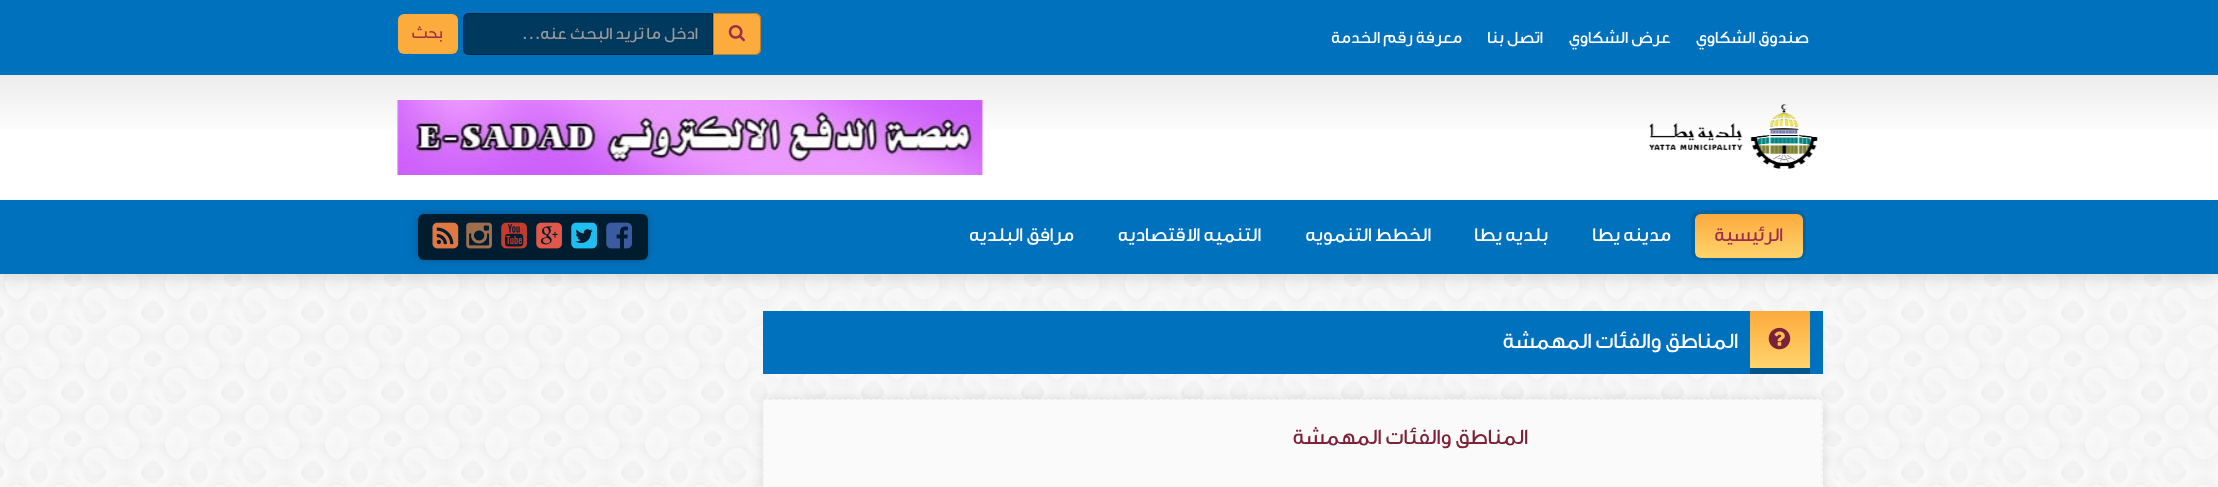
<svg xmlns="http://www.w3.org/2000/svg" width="2218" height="487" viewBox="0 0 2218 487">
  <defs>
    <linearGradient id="g1" gradientUnits="userSpaceOnUse" x1="1109" y1="75" x2="1109" y2="200"><stop offset="0" stop-color="#ececec"/><stop offset="0.5" stop-color="#fff"/></linearGradient>
    <linearGradient id="g2" gradientUnits="userSpaceOnUse" x1="1749" y1="214" x2="1749" y2="258"><stop offset="0" stop-color="#fcaa3c"/><stop offset="1" stop-color="#ffd46d"/></linearGradient>
    <clipPath id="clip1"><path d="M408 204H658V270H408ZM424 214H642C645.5 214 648 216.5 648 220V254C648 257.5 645.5 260 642 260H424C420.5 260 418 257.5 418 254V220C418 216.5 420.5 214 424 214Z" clip-rule="evenodd"/></clipPath>
    <linearGradient id="g3" gradientUnits="userSpaceOnUse" x1="1780" y1="311" x2="1780" y2="368"><stop offset="0" stop-color="#fcaa3c"/><stop offset="1" stop-color="#ffd46d"/></linearGradient>
  </defs>
  <rect width="100%" height="100%" fill="#fff"/>
  <image x="0" y="274" width="2218" height="213" href="img/1.png"/>
  <path d="M0 0h2218v75H0z" fill="#0071bc"/>
  <path d="M713 13H755C758.5 13 761 15.5 761 19V49C761 52.5 758.5 55 755 55H713Z" fill="#fcab3d"/>
  <path d="M713.5 13.5H755C758 13.5 760.5 16 760.5 19V49C760.5 52 758 54.5 755 54.5H713.5Z" fill="none" stroke="#00000040"/>
  <image x="728" y="25" width="17" height="17" href="img/2.png"/>
  <path d="M469 13H713V55H469C465.5 55 463 52.5 463 49V19C463 15.5 465.5 13 469 13Z" fill="#00395e"/>
  <path d="M469 15H711V14H469C466 14 464 16 464 19V20C464 17 466 15 469 15Z" fill="#003557"/>
  <path d="M469 13.5H712.5V54.5H469C466 54.5 463.5 52 463.5 49V19C463.5 16 466 13.5 469 13.5Z" fill="none" stroke="#00000040"/>
  <rect x="398" y="14" width="60" height="40" rx="6" fill="#fcab3d"/>
  <path d="M0 75h2218v54H0z" fill="url(#g1)"/>
  <image x="1649" y="104" width="169" height="65" href="img/3.png"/>
  <image x="397" y="100" width="587" height="75" href="img/4.png"/>
  <path d="M0 206h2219v74H0z" fill="#0000001a" filter="blur(6px)"/>
  <path d="M0 200h2218v74H0z" fill="#0071bc"/>
  <rect x="1693" y="212" width="111" height="47" rx="8" fill="none" stroke="#0066a9" stroke-width="4"/>
  <rect x="1695" y="214" width="108" height="44" rx="6" fill="url(#g2)"/>
  <g clip-path="url(#clip1)">
    <rect x="418" y="214" width="230" height="46" rx="6" fill="#00000040" filter="blur(3px)"/>
  </g>
  <rect x="418" y="214" width="230" height="46" rx="6" fill="#000000bf"/>
  <image x="606" y="222" width="26" height="27" href="img/5.png"/>
  <image x="571" y="222" width="26" height="27" href="img/6.png"/>
  <image x="536" y="222" width="26" height="27" href="img/7.png"/>
  <image x="501" y="222" width="26" height="27" href="img/8.png"/>
  <image x="466" y="222" width="26" height="27" href="img/9.png"/>
  <image x="432" y="222" width="27" height="27" href="img/10.png"/>
  <path d="M763 311h1060v63H763z" fill="#0071bc"/>
  <path d="M1750 368h60v6H1750z" fill="#00558d"/>
  <path d="M1750 311h60v57H1750z" fill="url(#g3)"/>
  <image x="1768" y="327" width="23" height="23" href="img/11.png"/>
  <path d="M763 399h1060v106H763z" fill="#0000001a" filter="blur(6px)"/>
  <path d="M763 399h1060v88H763z" fill="#fafafa"/>
  <path d="M762.5 399.5H1822.5" fill="none" stroke="#eee" stroke-width="1.2" stroke-dasharray="3.75 2.5"/>
  <path d="M1822 399V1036" fill="none" stroke="#eee" stroke-width="1.2" stroke-dasharray="3.75 2.52"/>
  <path d="M763 399V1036" fill="none" stroke="#eee" stroke-width="1.2" stroke-dasharray="3.75 2.52"/>
  <g font-family="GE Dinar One" font-size="17.5" font-weight="500" direction="rtl" fill="#fff">
    <text x="1809" y="43">صندوق الشكاوي</text>
    <text x="1671" y="43">عرض الشكاوي</text>
    <text x="1543" y="43">اتصل بنا</text>
    <text x="1462" y="43">معرفة رقم الخدمة</text>
  </g>
  <text x="698" y="39" font-family="GE Dinar One" font-size="17.5" font-weight="500" direction="rtl" fill="#999">ادخل ما تريد البحث عنه...</text>
  <text x="443" y="38" font-family="'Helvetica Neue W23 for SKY'" font-size="17.5" direction="rtl" fill="#9f2c4d">بحث</text>
  <text x="1783" y="241" font-family="GE Dinar One" font-size="20" font-weight="500" direction="rtl" fill="#9f2c4d">الرئيسية</text>
  <g font-family="GE Dinar One" font-size="20" font-weight="500" direction="rtl" fill="#fff">
    <text x="1671" y="241">مدينه يطا</text>
    <text x="1548" y="241">بلديه يطا</text>
    <text x="1431" y="241">الخطط التنمويه</text>
    <text x="1261" y="241">التنميه الاقتصاديه</text>
    <text x="1074" y="241">مرافق البلديه</text>
  </g>
  <text x="1738" y="348" font-family="GE Dinar One" font-size="22.5" font-weight="500" direction="rtl" fill="#fff">المناطق والفئات المهمشة</text>
  <text x="1528" y="444" font-family="GE Dinar One" font-size="22.5" font-weight="500" direction="rtl" fill="#7b223a">المناطق والفئات المهمشة</text>
</svg>
